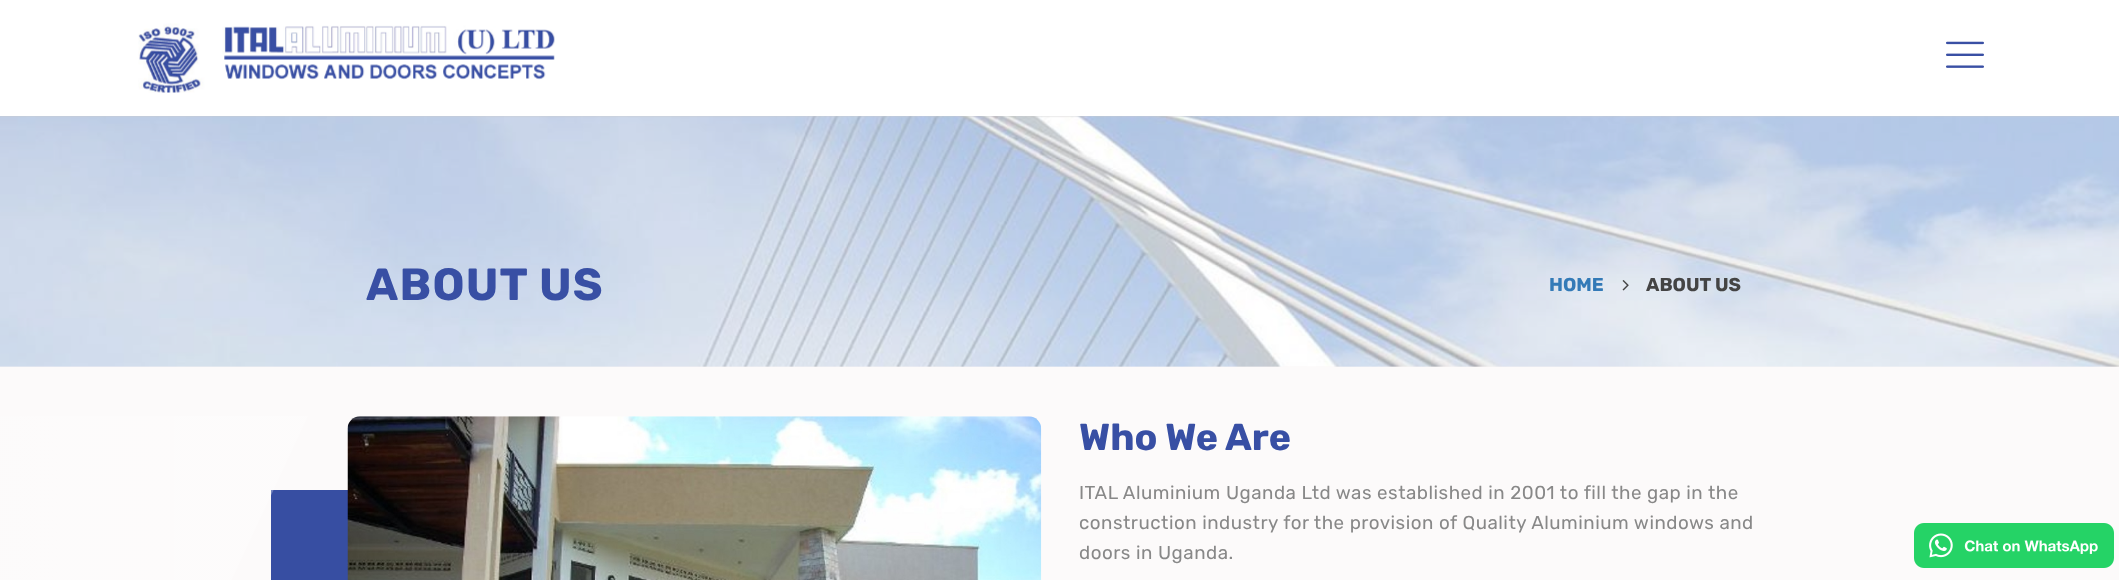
<svg xmlns="http://www.w3.org/2000/svg" width="2119" height="580" viewBox="0 0 2119 580">
  <defs>
    <linearGradient id="g1" gradientUnits="userSpaceOnUse" x1="-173" y1="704" x2="174" y2="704"><stop offset="0" stop-color="#fff" stop-opacity="0"/><stop offset="1" stop-color="#fff" stop-opacity="0.3"/></linearGradient>
  </defs>
  <rect width="100%" height="100%" fill="#fcfafa"/>
  <image x="0" y="116" width="2119" height="251" href="img/3.png"/>
  <path d="M0 0h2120v116H0z" fill="#ccc" filter="blur(1px)"/>
  <path d="M0 0h2119v116H0z" fill="#fff"/>
  <image x="138" y="23" width="417" height="70" href="img/1.png"/>
  <image x="1946" y="41" width="38" height="27" href="img/2.png"/>
  <image x="1622" y="280" width="7" height="11" href="img/4.png"/>
  <path d="M271 490h77v90H271z" fill="#374ea2"/>
  <path d="M-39 416H308L40 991H-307Z" fill="url(#g1)"/>
  <image x="347" y="416" width="695" height="164" href="img/5.png"/>
  <image x="1914" y="523" width="200" height="45" href="img/6.png"/>
  <text x="366" y="300" font-family="Rubik" font-size="45" font-weight="bold" letter-spacing="1.25" fill="#384fa4">ABOUT US</text>
  <text x="1549" y="291" font-family="Rubik" font-size="18.75" font-weight="bold" fill="#337ab7">HOME</text>
  <text x="1646" y="291" font-family="Rubik" font-size="18.75" font-weight="bold" fill="#444">ABOUT US</text>
  <text x="1079" y="450" font-family="Rubik" font-size="37.5" font-weight="bold" fill="#384fa4">Who We Are</text>
  <g font-family="Rubik" font-size="18.75" letter-spacing="0.5" fill="#888">
    <text x="1079" y="499">ITAL Aluminium Uganda Ltd was established in 2001 to fill the gap in the</text>
    <text x="1079" y="529">construction industry for the provision of Quality Aluminium windows and</text>
    <text x="1079" y="559">doors in Uganda.</text>
  </g>
</svg>
